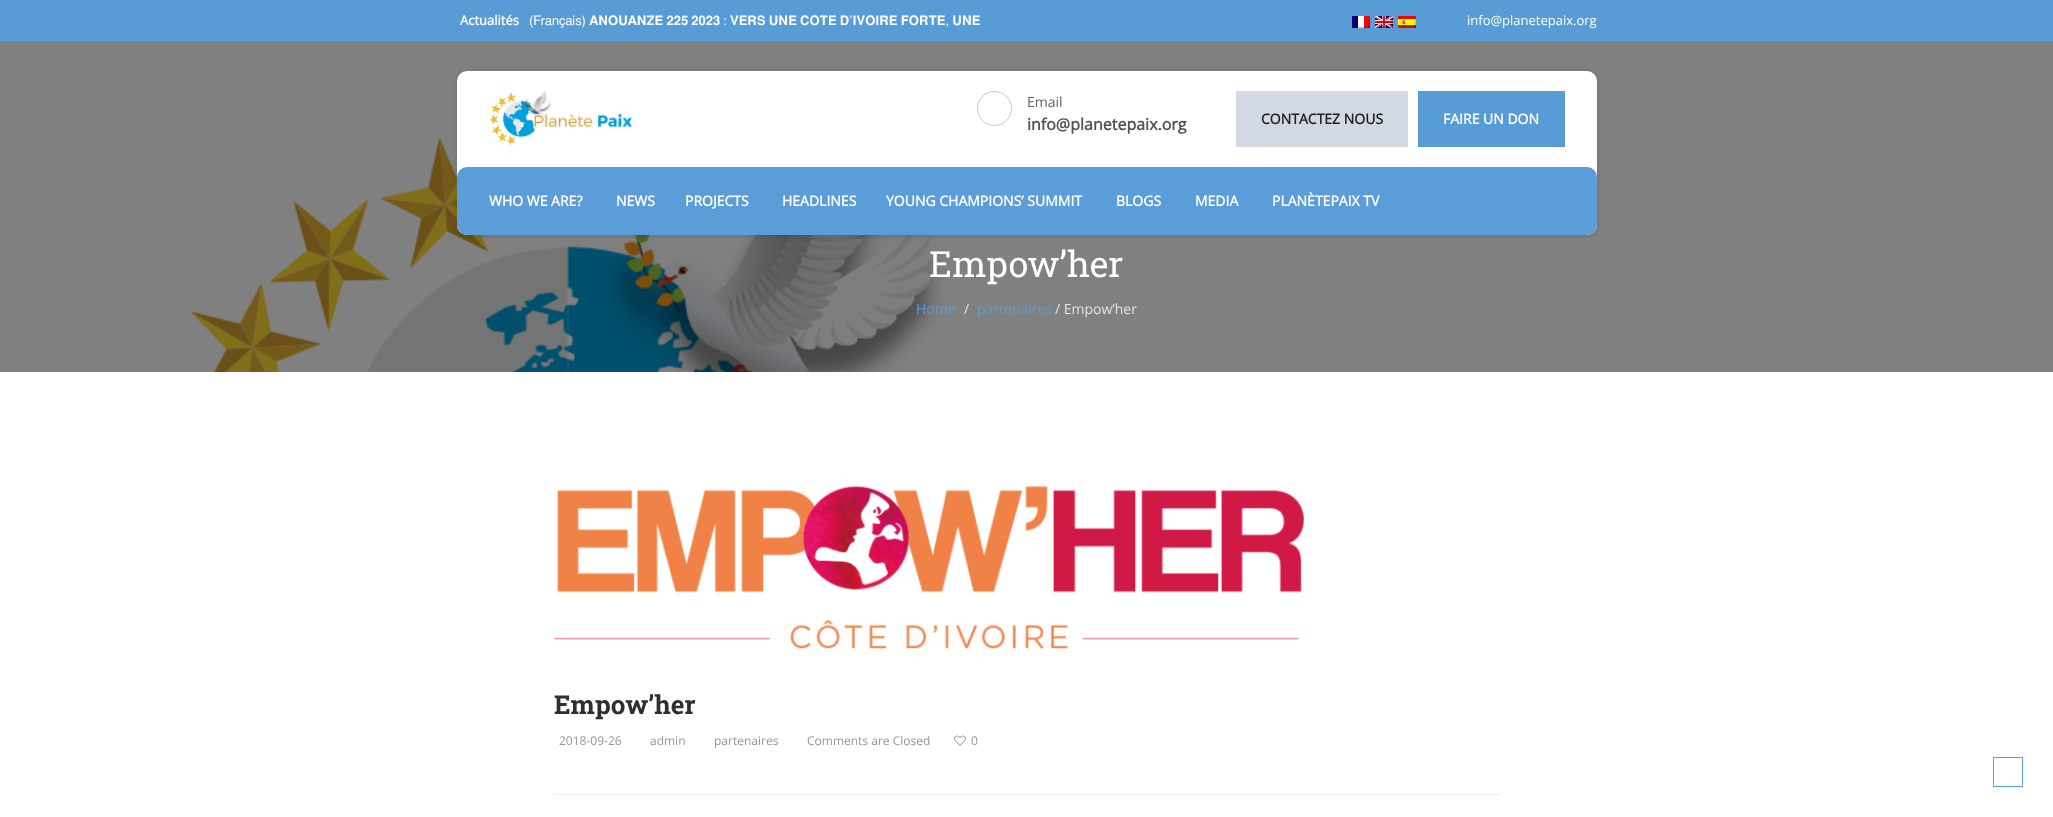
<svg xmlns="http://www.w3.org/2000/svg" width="2053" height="817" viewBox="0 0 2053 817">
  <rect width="100%" height="100%" fill="#fff"/>
  <path d="M0 41h2053v331H0z" fill="#808080"/>
  <path d="M0 0h2053v40H0z" fill="#589cd6"/>
  <path d="M0 40h2053v1H0z" fill="#5b9dd9"/>
  <image x="1352" y="16" width="18" height="12" href="img/1.png"/>
  <image x="1375" y="16" width="18" height="12" href="img/2.png"/>
  <image x="1398" y="16" width="18" height="12" href="img/3.png"/>
  <image x="190" y="137" width="753" height="235" href="img/5.png"/>
  <rect x="459" y="74" width="1136" height="160" rx="8" fill="#00000040" filter="blur(3.5px)"/>
  <rect x="457" y="71" width="1140" height="164" rx="10" fill="#fff"/>
  <image x="489" y="91" width="144" height="55" href="img/4.png"/>
  <circle cx="994.5" cy="108.5" r="17" fill="none" stroke="#cbc9c9"/>
  <path d="M1236 91h172v56H1236z" fill="#d3d9e3"/>
  <path d="M1418 91h147v56H1418z" fill="#589cd6"/>
  <rect x="457" y="167" width="1140" height="68" rx="10" fill="#5b9dd9"/>
  <image x="554" y="485" width="750" height="164" href="img/6.png"/>
  <image x="954" y="735" width="12" height="11" href="img/7.png"/>
  <path d="M554 794h945v1H554z" fill="#efefef"/>
  <path d="M1993.5 757.5h29v29H1993.5z" fill="none" stroke="#589cd6"/>
  <text x="460" y="25" font-family="Open Sans" font-size="13" font-weight="bold" fill="#fff">Actualités</text>
  <text x="529" y="25" font-family="FreeSans" font-size="13" fill="#fff">(Français) 𝐀𝐍𝐎𝐔𝐀𝐍𝐙𝐄 𝟐𝟐𝟓 𝟐𝟎𝟐𝟑 : 𝐕𝐄𝐑𝐒 𝐔𝐍𝐄 𝐂𝐎𝐓𝐄 𝐃’𝐈𝐕𝐎𝐈𝐑𝐄 𝐅𝐎𝐑𝐓𝐄, 𝐔𝐍𝐄</text>
  <text x="1467" y="25" font-family="Open Sans" font-size="13" fill="#fff">info@planetepaix.org</text>
  <text x="1027" y="107" font-family="Open Sans" font-size="14" fill="#606060">Email</text>
  <text x="1027" y="130" font-family="Open Sans" font-size="16" font-weight="bold" fill="#525252">info@planetepaix.org</text>
  <text x="1261" y="124" font-family="Open Sans" font-size="14" font-weight="bold" fill="#212121">CONTACTEZ NOUS</text>
  <g font-family="Open Sans" font-size="14" font-weight="bold" fill="#fff">
    <text x="1443" y="124">FAIRE UN DON</text>
    <text x="489" y="206">WHO WE ARE?</text>
    <text x="616" y="206">NEWS</text>
    <text x="685" y="206">PROJECTS</text>
    <text x="782" y="206">HEADLINES</text>
    <text x="886" y="206">YOUNG CHAMPIONS’ SUMMIT</text>
    <text x="1116" y="206">BLOGS</text>
    <text x="1195" y="206">MEDIA</text>
    <text x="1272" y="206">PLANÈTEPAIX TV</text>
  </g>
  <text x="929" y="277" font-family="Roboto Slab" font-size="36" fill="#fff">Empow’her</text>
  <text x="916" y="314" font-family="Open Sans" font-size="14" fill="#589cd6">Home</text>
  <text x="964" y="314" font-family="Open Sans" font-size="14" fill="#e2e2e2">/</text>
  <text x="977" y="314" font-family="Open Sans" font-size="14" fill="#589cd6">partenaires</text>
  <text x="1055" y="314" font-family="Open Sans" font-size="14" fill="#e2e2e2">/ Empow’her</text>
  <text x="554" y="714" font-family="Roboto Slab" font-size="26" font-weight="bold" fill="#2f2f2f">Empow’her</text>
  <g font-family="Open Sans" font-size="12" fill="#969696">
    <text x="559" y="745">2018-09-26</text>
    <text x="650" y="745">admin</text>
    <text x="714" y="745">partenaires</text>
    <text x="807" y="745">Comments are Closed</text>
    <text x="971" y="745">0</text>
  </g>
</svg>
